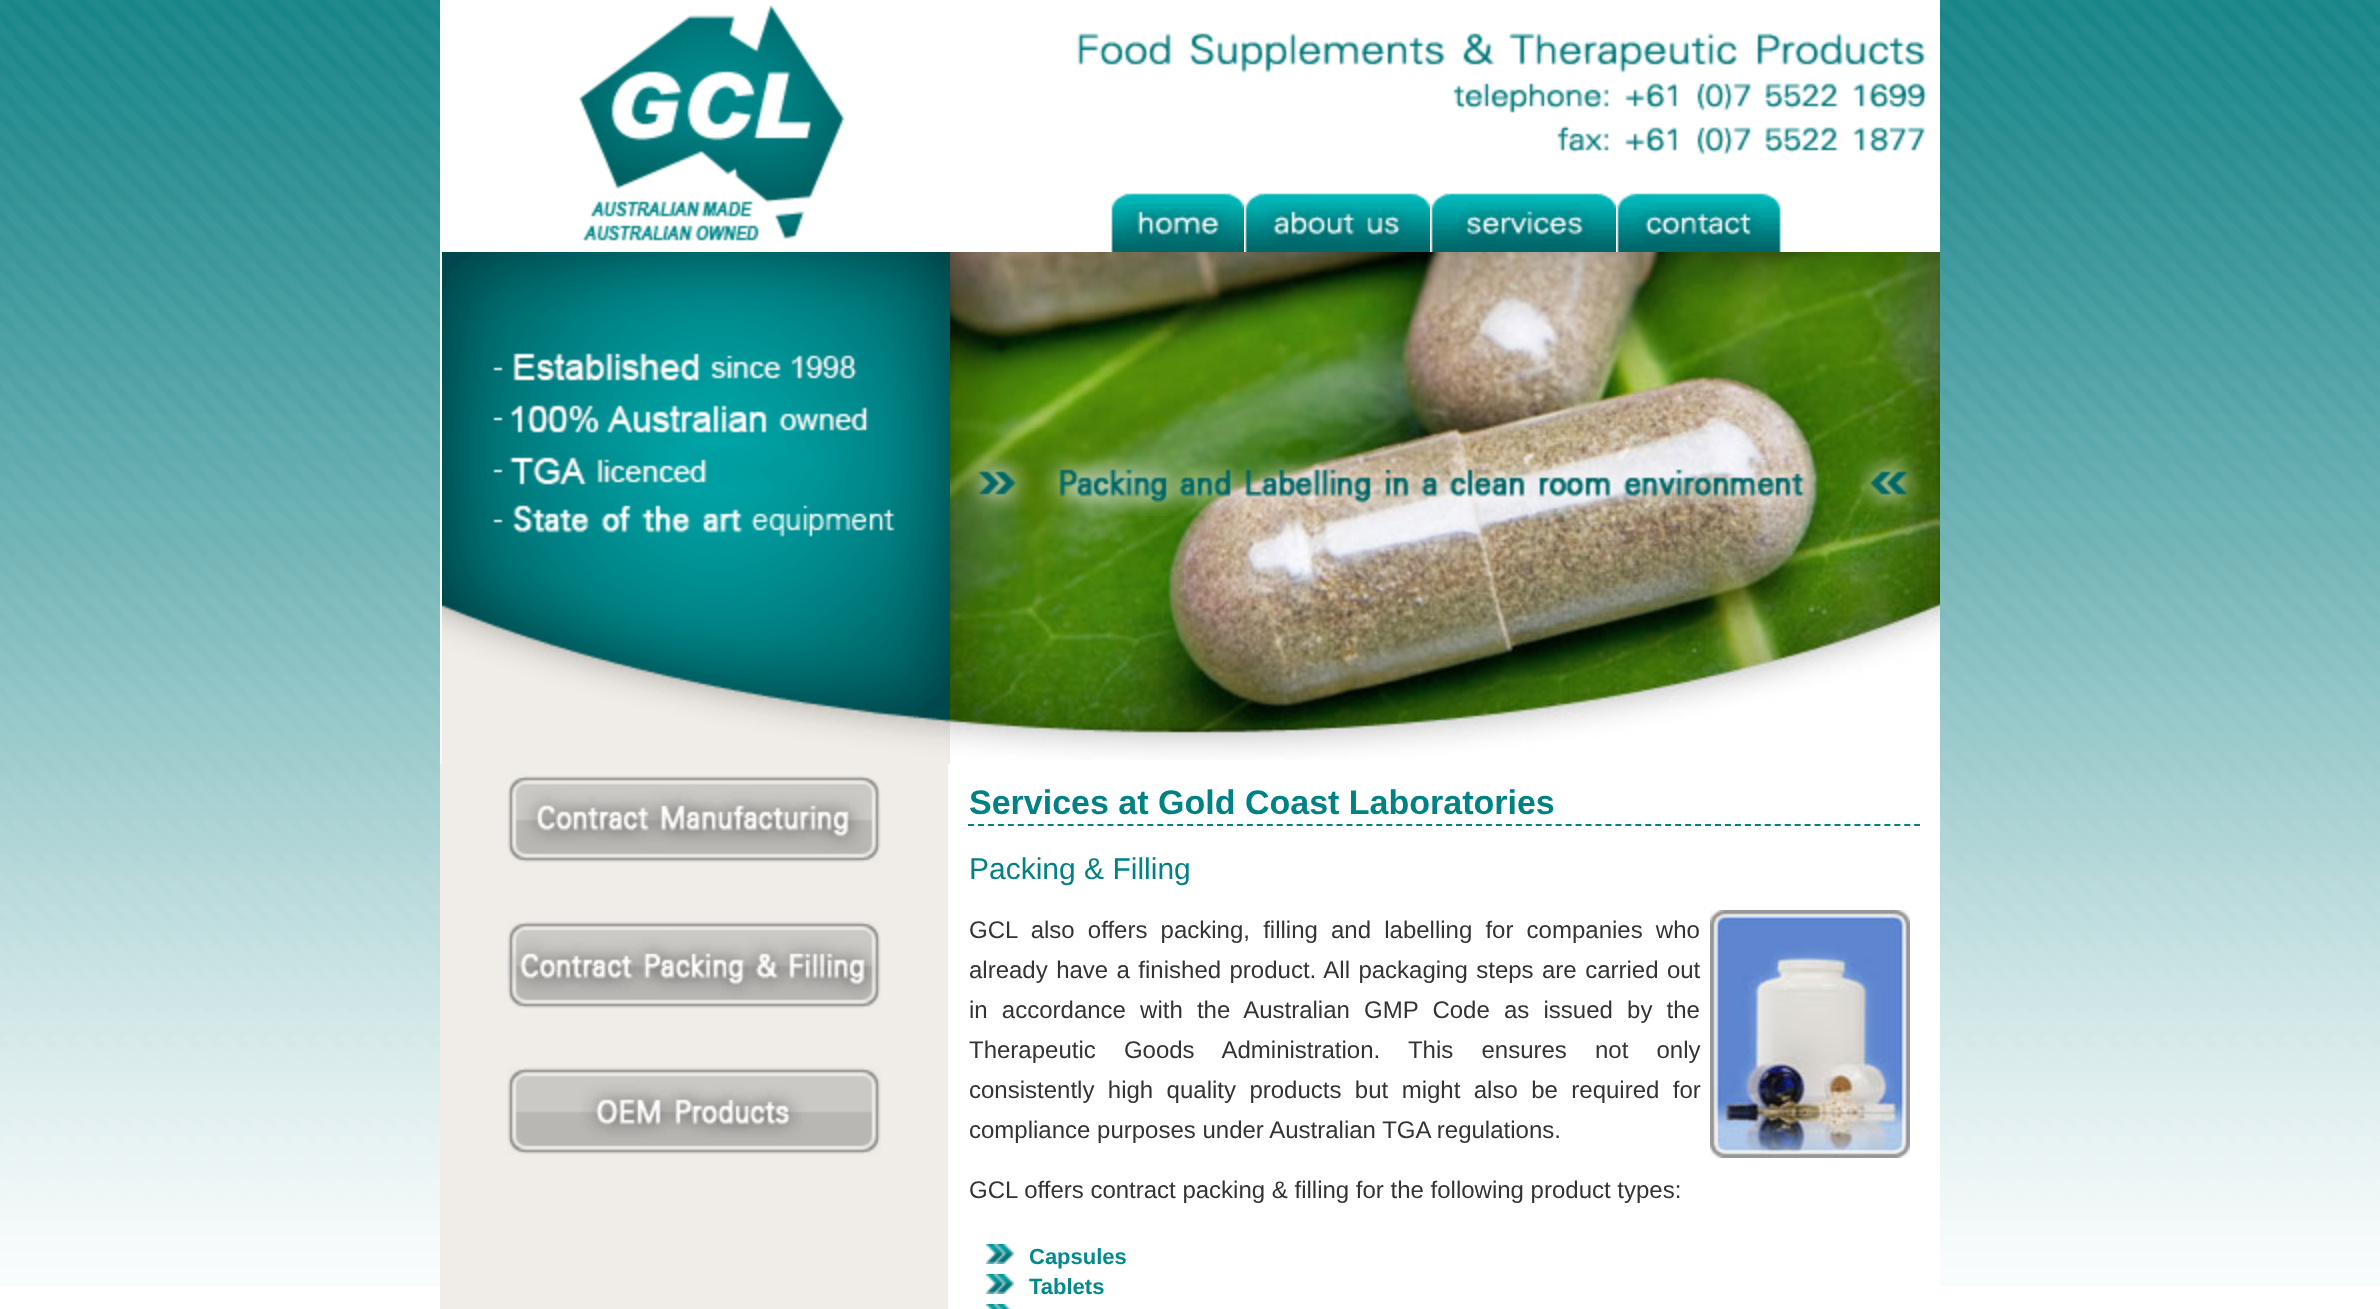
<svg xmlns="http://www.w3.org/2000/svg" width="2380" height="1309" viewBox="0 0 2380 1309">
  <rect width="100%" height="100%" fill="#fff"/>
  <image x="0" y="0" width="2380" height="1286" href="img/1.png"/>
  <path d="M440 0h1500v1286H440z" fill="#fff"/>
  <image x="579" y="5" width="266" height="236" href="img/2.png"/>
  <image x="1077" y="33" width="850" height="122" href="img/3.png"/>
  <image x="1111" y="193" width="133" height="59" href="img/4.png"/>
  <image x="1245" y="193" width="185" height="59" href="img/5.png"/>
  <image x="1431" y="193" width="185" height="59" href="img/6.png"/>
  <image x="1617" y="193" width="166" height="59" href="img/7.png"/>
  <image x="442" y="252" width="508" height="512" href="img/8.png"/>
  <image x="950" y="252" width="990" height="508" href="img/9.png"/>
  <image x="963" y="452" width="960" height="64" href="img/10.png"/>
  <path d="M440 764h508v545H440z" fill="#f0ede8"/>
  <image x="507" y="775" width="374" height="88" href="img/11.png"/>
  <image x="506" y="921" width="375" height="88" href="img/12.png"/>
  <image x="507" y="1067" width="374" height="88" href="img/13.png"/>
  <path d="M968 825H1920" fill="none" stroke="#008285" stroke-width="2" stroke-dasharray="6 3.96"/>
  <image x="1710" y="910" width="200" height="248" href="img/14.png"/>
  <image x="986" y="1244" width="28" height="20" href="img/15.png"/>
  <image x="986" y="1274" width="28" height="20" href="img/15.png"/>
  <image x="986" y="1304" width="25" height="5" href="img/16.png"/>
  <text x="969" y="814" font-family="Liberation Sans" font-size="34" font-weight="bold" fill="#008285">Services at Gold Coast Laboratories</text>
  <text x="969" y="879" font-family="Liberation Sans" font-size="30" fill="#008285">Packing &amp; Filling</text>
  <g font-family="Liberation Sans" font-size="24" fill="#333">
    <text x="969" y="938" word-spacing="6.5">GCL also offers packing, filling and labelling for companies who</text>
    <text x="969" y="978" word-spacing="1.75">already have a finished product. All packaging steps are carried out</text>
    <text x="969" y="1018" word-spacing="7.5">in accordance with the Australian GMP Code as issued by the</text>
    <text x="969" y="1058" word-spacing="21.5">Therapeutic Goods Administration. This ensures not only</text>
    <text x="969" y="1098" word-spacing="6.75">consistently high quality products but might also be required for</text>
    <text x="969" y="1138">compliance purposes under Australian TGA regulations.</text>
    <text x="969" y="1198">GCL offers contract packing &amp; filling for the following product types:</text>
  </g>
  <g font-family="Liberation Sans" font-size="22" font-weight="bold" fill="#008a8c">
    <text x="1029" y="1264">Capsules</text>
    <text x="1029" y="1294">Tablets</text>
  </g>
</svg>
